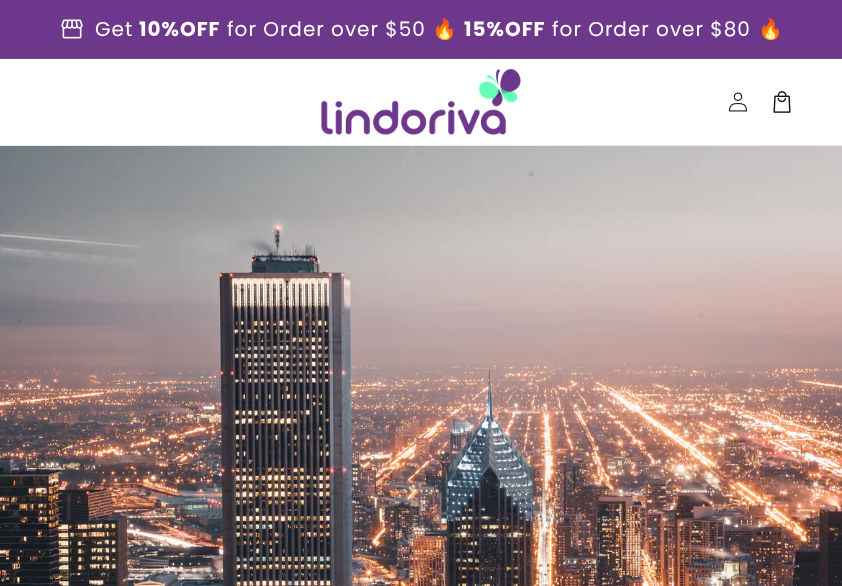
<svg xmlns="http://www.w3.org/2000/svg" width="842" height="586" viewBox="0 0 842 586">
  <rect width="100%" height="100%" fill="#fff"/>
  <path d="M0 0h842v58H0z" fill="#6d388b"/>
  <path d="M0 58h842v1H0z" fill="#794894"/>
  <image x="61" y="19" width="22" height="20" href="img/1.png"/>
  <path d="M0 145h842v1H0z" fill="#ececec"/>
  <image x="321" y="69" width="200" height="66" href="img/2.png"/>
  <image x="729" y="92" width="18" height="20" href="img/3.png"/>
  <image x="773" y="91" width="18" height="22" href="img/4.png"/>
  <image x="0" y="146" width="842" height="440" href="img/5.png"/>
  <text x="95" y="36" font-family="Poppins" font-size="20" letter-spacing="1" fill="#fff">Get</text>
  <text x="139" y="36" font-family="Poppins" font-size="20" font-weight="bold" letter-spacing="1" fill="#fff">10%OFF</text>
  <text x="227" y="36" font-family="Poppins" font-size="20" letter-spacing="1" fill="#fff">for Order over $50</text>
  <text x="432" y="36" font-family="Noto Color Emoji" font-size="20" letter-spacing="1" fill="#fff">🔥</text>
  <text x="464" y="36" font-family="Poppins" font-size="20" font-weight="bold" letter-spacing="1" fill="#fff">15%OFF</text>
  <text x="552" y="36" font-family="Poppins" font-size="20" letter-spacing="1" fill="#fff">for Order over $80</text>
  <text x="758" y="36" font-family="Noto Color Emoji" font-size="20" letter-spacing="1" fill="#fff">🔥</text>
</svg>
